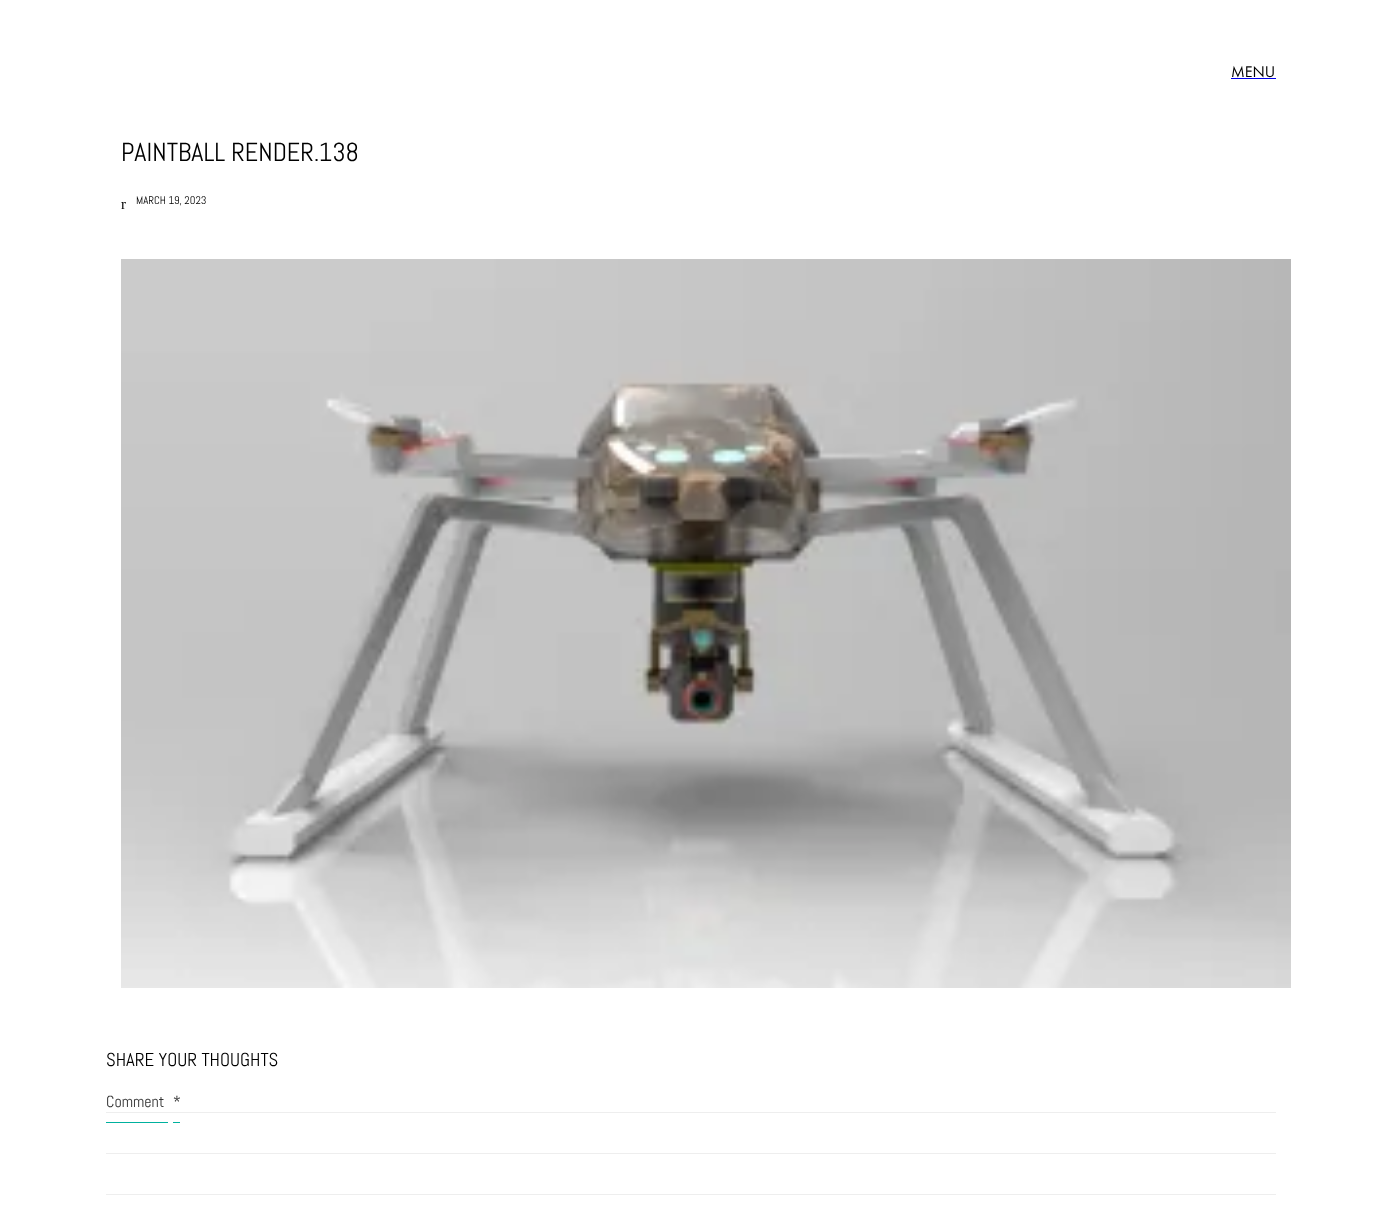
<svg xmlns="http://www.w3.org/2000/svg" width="1381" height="1226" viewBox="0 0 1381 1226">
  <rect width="100%" height="100%" fill="#fff"/>
  <path d="M1231 78h45v1H1231z" fill="#00e"/>
  <image x="121" y="259" width="1170" height="729" href="img/1.png"/>
  <path d="M106 1122h62v1H106z" fill="#00b19e"/>
  <path d="M173 1122h7v1H173z" fill="#00b19e"/>
  <path d="M106 1112h1170v1H106z" fill="#eee"/>
  <path d="M106 1153h1170v1H106z" fill="#eee"/>
  <path d="M106 1194h1170v1H106z" fill="#eee"/>
  <text x="1231" y="77" font-family="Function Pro" font-size="16" fill="#000">MENU</text>
  <text x="121" y="161" font-family="Abel" font-size="26" fill="#000">PAINTBALL RENDER.138</text>
  <text x="121" y="209" font-family="Liberation Serif" font-size="15" fill="#000">r</text>
  <text x="136" y="204" font-family="Abel" font-size="11" fill="#000">MARCH 19, 2023</text>
  <text x="106" y="1066" font-family="Abel" font-size="18.75" fill="#000">SHARE YOUR THOUGHTS</text>
  <g font-family="Abel" font-size="16" fill="#333">
    <text x="106" y="1107">Comment</text>
    <text x="173" y="1107">*</text>
  </g>
</svg>
